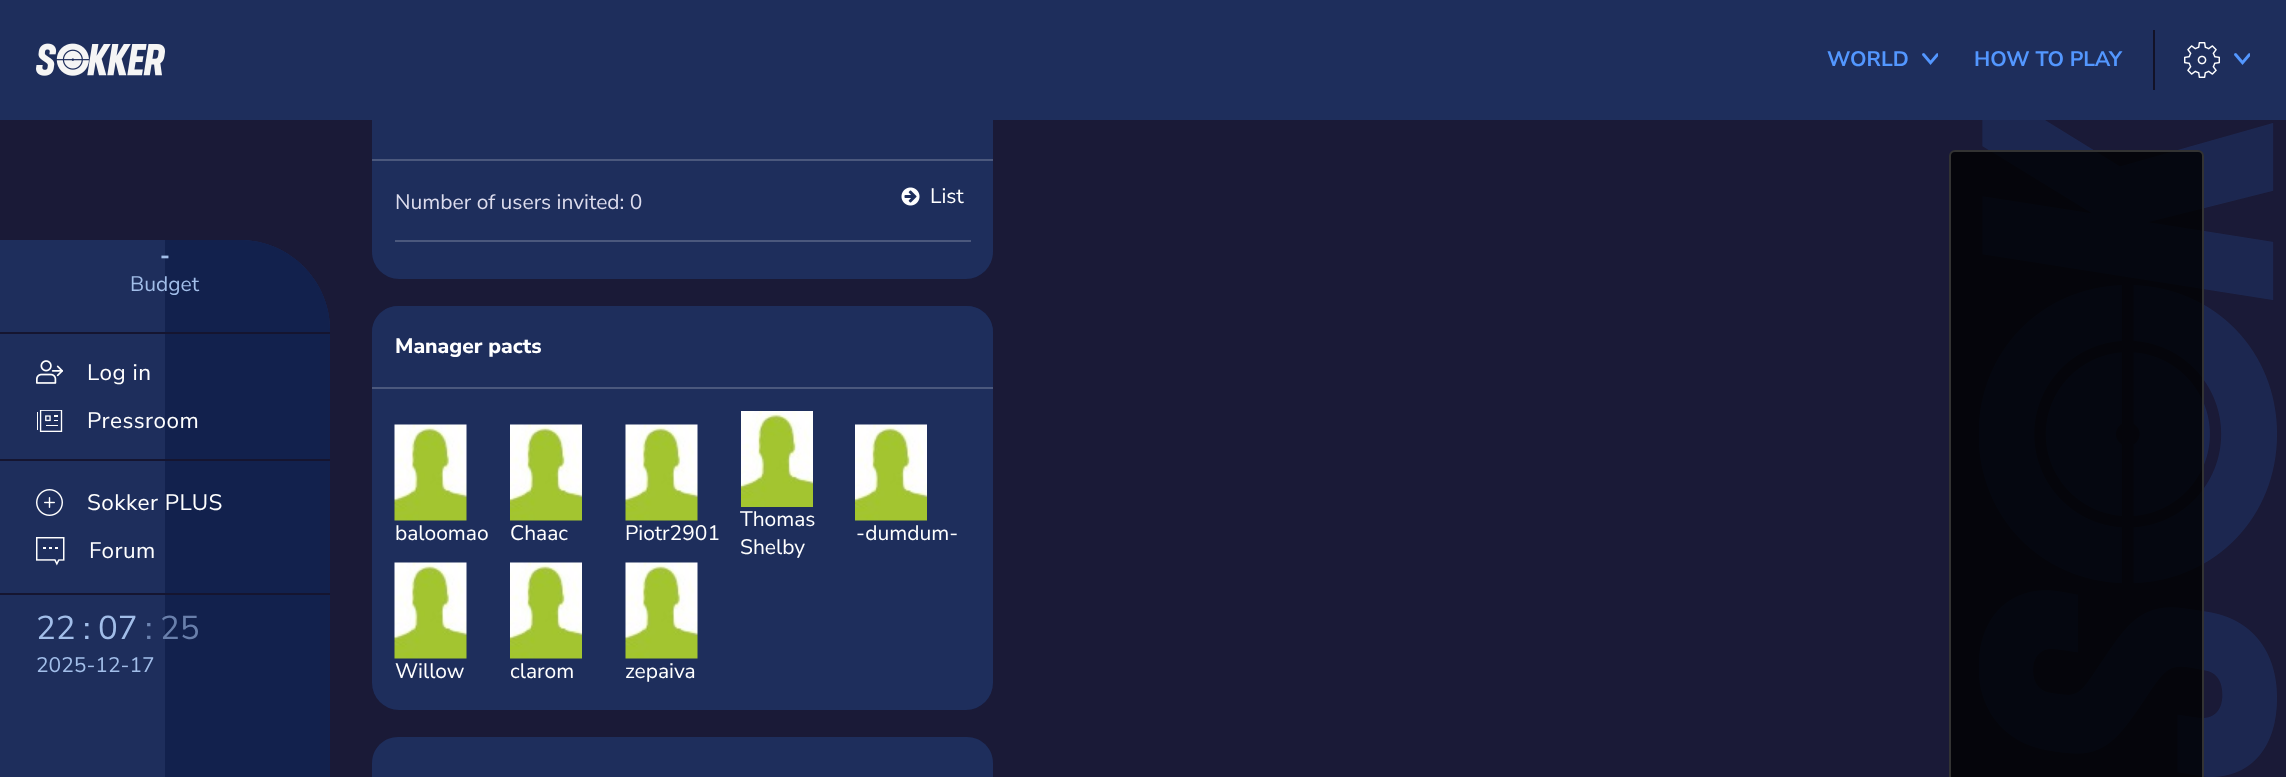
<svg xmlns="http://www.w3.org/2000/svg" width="2286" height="777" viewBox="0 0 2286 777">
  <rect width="100%" height="100%" fill="#1a1a37"/>
  <rect x="372" y="78" width="621" height="201" rx="27" fill="#1e2e5c"/>
  <path d="M0 0h2286v120H0z" fill="#1e2e5c"/>
  <image x="36" y="43" width="129" height="33" href="img/1.png"/>
  <image x="1922" y="53" width="16" height="12" href="img/2.png"/>
  <path d="M2153 30h2v60H2153z" fill="#121227"/>
  <image x="2184" y="42" width="36" height="36" href="img/3.png"/>
  <image x="2234" y="53" width="16" height="12" href="img/2.png"/>
  <image x="1979" y="120" width="298" height="657" href="img/4.png"/>
  <path d="M0 240H240C289.5 240 330 280.5 330 330V777H0Z" fill="#1e2e5c"/>
  <path d="M165 240H240C289.5 240 330 280.5 330 330V777H165Z" fill="#12214d"/>
  <path d="M0 332h330v2H0z" fill="#151530"/>
  <path d="M0 459h330v2H0z" fill="#151530"/>
  <image x="36" y="360" width="27" height="24" href="img/5.png"/>
  <image x="37" y="410" width="26" height="22" href="img/6.png"/>
  <path d="M0 593h330v2H0z" fill="#151530"/>
  <image x="36" y="489" width="27" height="27" href="img/7.png"/>
  <image x="36" y="537" width="29" height="29" href="img/8.png"/>
  <path d="M372 159h621v2H372z" fill="#4b587d"/>
  <image x="901" y="187" width="19" height="19" href="img/9.png"/>
  <path d="M395 240h576v2H395z" fill="#4b587d"/>
  <rect x="372" y="306" width="621" height="404" rx="27" fill="#1e2e5c"/>
  <path d="M398 306H967C981.5 306 993 317.5 993 332V389H372V332C372 317.5 383.5 306 398 306Z" fill="#1e2e5c"/>
  <path d="M372 387h621v2H372z" fill="#4b587d"/>
  <image x="394" y="424" width="73" height="97" href="img/10.png"/>
  <image x="510" y="424" width="72" height="97" href="img/11.png"/>
  <image x="625" y="424" width="73" height="97" href="img/10.png"/>
  <image x="741" y="411" width="72" height="96" href="img/12.png"/>
  <image x="855" y="424" width="72" height="97" href="img/11.png"/>
  <image x="394" y="562" width="73" height="97" href="img/10.png"/>
  <image x="510" y="562" width="72" height="97" href="img/11.png"/>
  <image x="625" y="562" width="73" height="97" href="img/10.png"/>
  <path d="M398 737H967C981.5 737 993 748.5 993 763V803H372V763C372 748.5 383.5 737 398 737Z" fill="#1e2e5c"/>
  <rect x="1950" y="151" width="253" height="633" rx="5" fill="#000000cc" stroke="#333" stroke-width="2"/>
  <g font-family="Nunito Sans" font-size="21" font-weight="bold" fill="#5397ff">
    <text x="1827" y="66">WORLD</text>
    <text x="1974" y="66">HOW TO PLAY</text>
  </g>
  <text x="160" y="263" font-family="Nunito Sans" font-size="22.5" font-weight="800" fill="#a2bee9">-</text>
  <text x="130" y="291" font-family="Nunito Sans" font-size="21" fill="#a2bee9">Budget</text>
  <g font-family="Nunito Sans" font-size="22.5" letter-spacing="0.5" fill="#fff">
    <text x="87" y="380">Log in</text>
    <text x="87" y="428">Pressroom</text>
    <text x="87" y="510">Sokker PLUS</text>
    <text x="89" y="558">Forum</text>
  </g>
  <g font-family="Nunito Sans" font-size="33" fill="#a2bee9">
    <text x="36" y="639">22</text>
    <text x="83" y="639">:</text>
    <text x="98" y="639">07</text>
  </g>
  <text x="145" y="639" font-family="Nunito Sans" font-size="33" fill="#6d84b1">:</text>
  <text x="160" y="639" font-family="Nunito Sans" font-size="33" fill="#697fab">25</text>
  <text x="36" y="672" font-family="Nunito Sans" font-size="21" fill="#a2bee9">2025-12-17</text>
  <text x="395" y="209" font-family="Nunito Sans" font-size="21" fill="#dcdced">Number of users invited: 0</text>
  <text x="930" y="203" font-family="Nunito Sans" font-size="21" fill="#fff">List</text>
  <text x="395" y="353" font-family="Nunito Sans" font-size="21" font-weight="800" fill="#fff">Manager pacts</text>
  <g font-family="Nunito Sans" font-size="21" fill="#fff">
    <text x="395" y="540">baloomao</text>
    <text x="510" y="540">Chaac</text>
    <text x="625" y="540">Piotr2901</text>
    <text x="740" y="526">Thomas</text>
    <text x="740" y="554">Shelby</text>
    <text x="856" y="540">-dumdum-</text>
    <text x="395" y="678">Willow</text>
    <text x="510" y="678">clarom</text>
    <text x="625" y="678">zepaiva</text>
  </g>
</svg>
